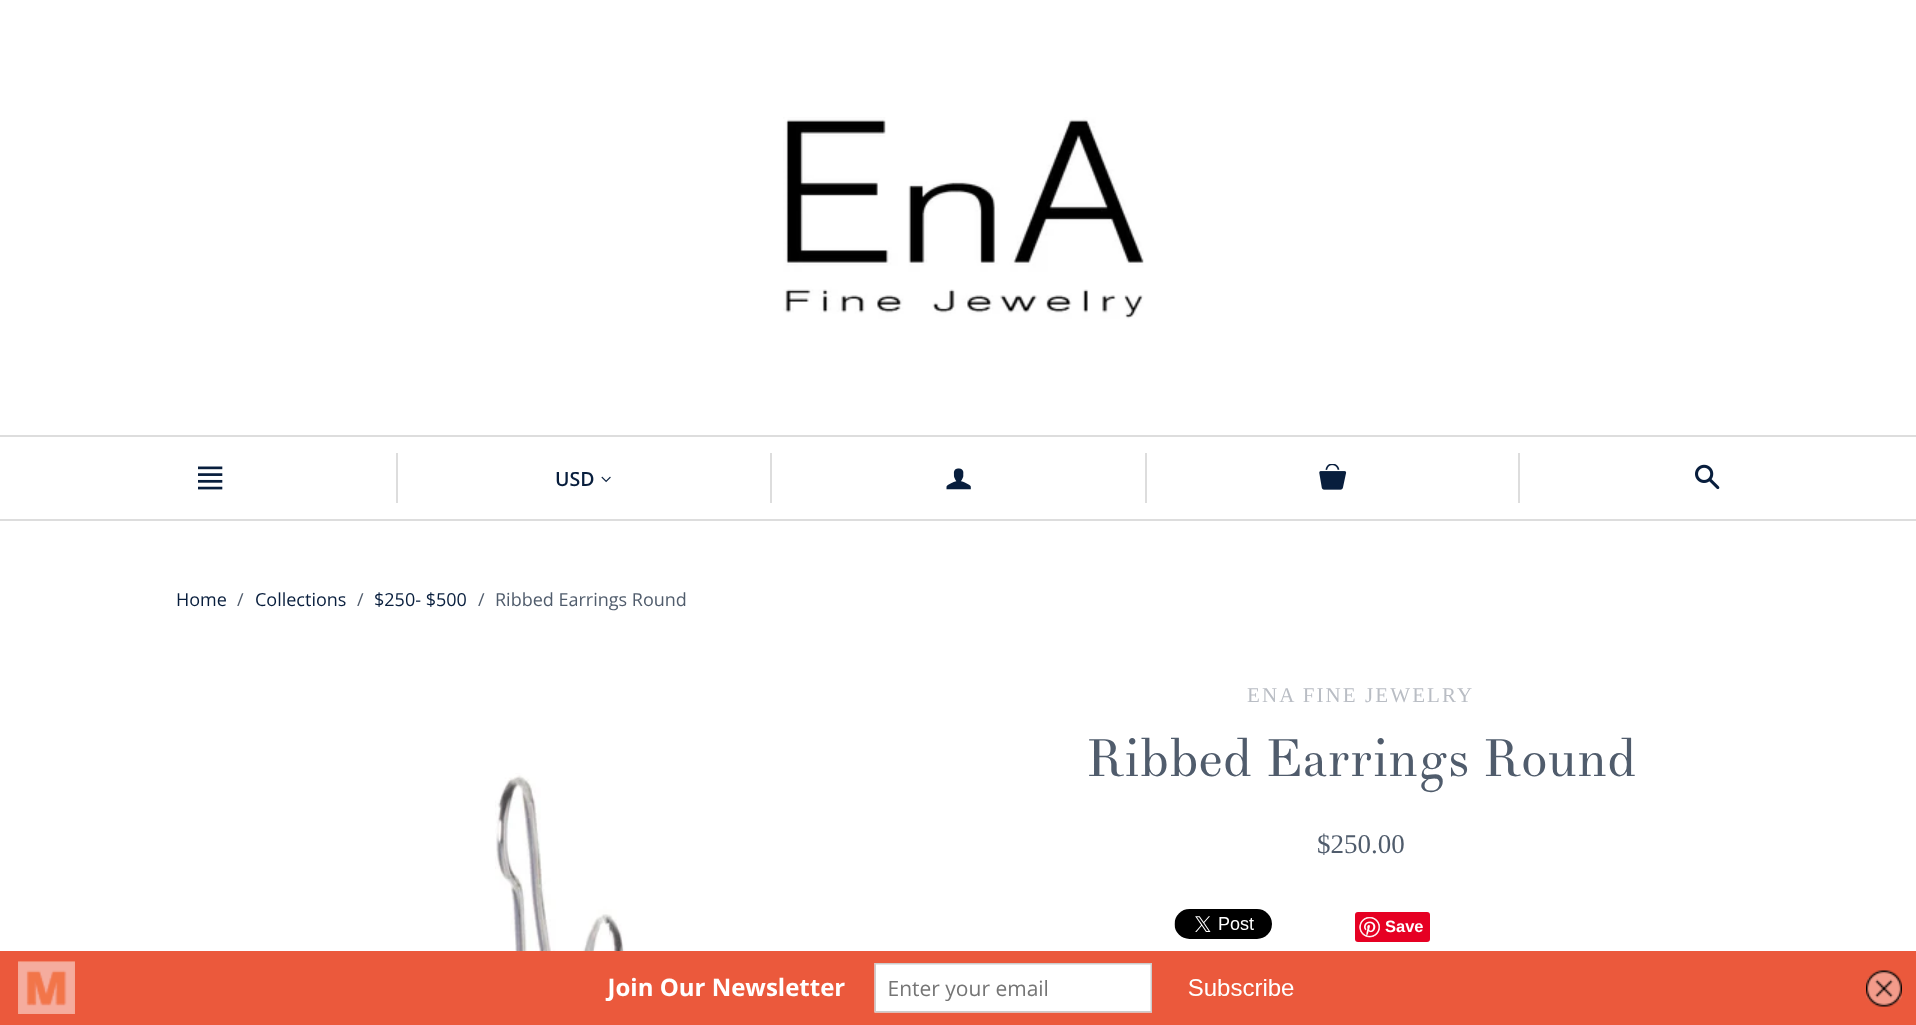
<svg xmlns="http://www.w3.org/2000/svg" width="1916" height="1025" viewBox="0 0 1916 1025">
  <rect width="100%" height="100%" fill="#fff"/>
  <image x="783" y="117" width="361" height="202" href="img/1.png"/>
  <path d="M0 435h1916v2H0z" fill="#ddd"/>
  <path d="M0 519h1916v2H0z" fill="#ddd"/>
  <image x="198" y="466" width="25" height="24" href="img/2.png"/>
  <path d="M396 453h2v50H396z" fill="#ddd"/>
  <image x="601" y="476" width="10" height="7" href="img/3.png"/>
  <path d="M770 453h2v50H770z" fill="#ddd"/>
  <image x="946" y="468" width="25" height="22" href="img/4.png"/>
  <path d="M1145 453h2v50H1145z" fill="#ddd"/>
  <image x="1319" y="464" width="28" height="26" href="img/5.png"/>
  <path d="M1518 453h2v50H1518z" fill="#ddd"/>
  <image x="1695" y="464" width="25" height="26" href="img/6.png"/>
  <image x="495" y="773" width="132" height="178" href="img/7.png"/>
  <image x="1174" y="909" width="98" height="30" href="img/8.png"/>
  <rect x="1355" y="912" width="75" height="30" rx="3" fill="#e60023"/>
  <image x="1359" y="917" width="21" height="21" href="img/9.png"/>
  <image x="0" y="951" width="1916" height="74" href="img/10.png"/>
  <text x="555" y="486" font-family="Open Sans" font-size="19.5" font-weight="600" fill="#081e3d">USD</text>
  <text x="176" y="606" font-family="Open Sans" font-size="18" fill="#081e3d">Home</text>
  <text x="237" y="606" font-family="Open Sans" font-size="18" fill="#505c6c">/</text>
  <text x="255" y="606" font-family="Open Sans" font-size="18" fill="#081e3d">Collections</text>
  <text x="357" y="606" font-family="Open Sans" font-size="18" fill="#505c6c">/</text>
  <text x="374" y="606" font-family="Open Sans" font-size="18" fill="#081e3d">$250- $500</text>
  <g font-family="Open Sans" font-size="18" fill="#505c6c">
    <text x="478" y="606">/</text>
    <text x="495" y="606">Ribbed Earrings Round</text>
  </g>
  <text x="1247" y="702" font-family="Liberation Serif" font-size="21" letter-spacing="2.1" fill="#b9bdc4">ENA FINE JEWELRY</text>
  <text x="1086" y="776" font-family="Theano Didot" font-size="52.5" fill="#505c6c">Ribbed Earrings Round</text>
  <text x="1317" y="853" font-family="Liberation Serif" font-size="27" fill="#505c6c">$250.00</text>
  <text x="1385" y="932" font-family="Liberation Sans" font-size="16.5" font-weight="bold" fill="#fff">Save</text>
</svg>
